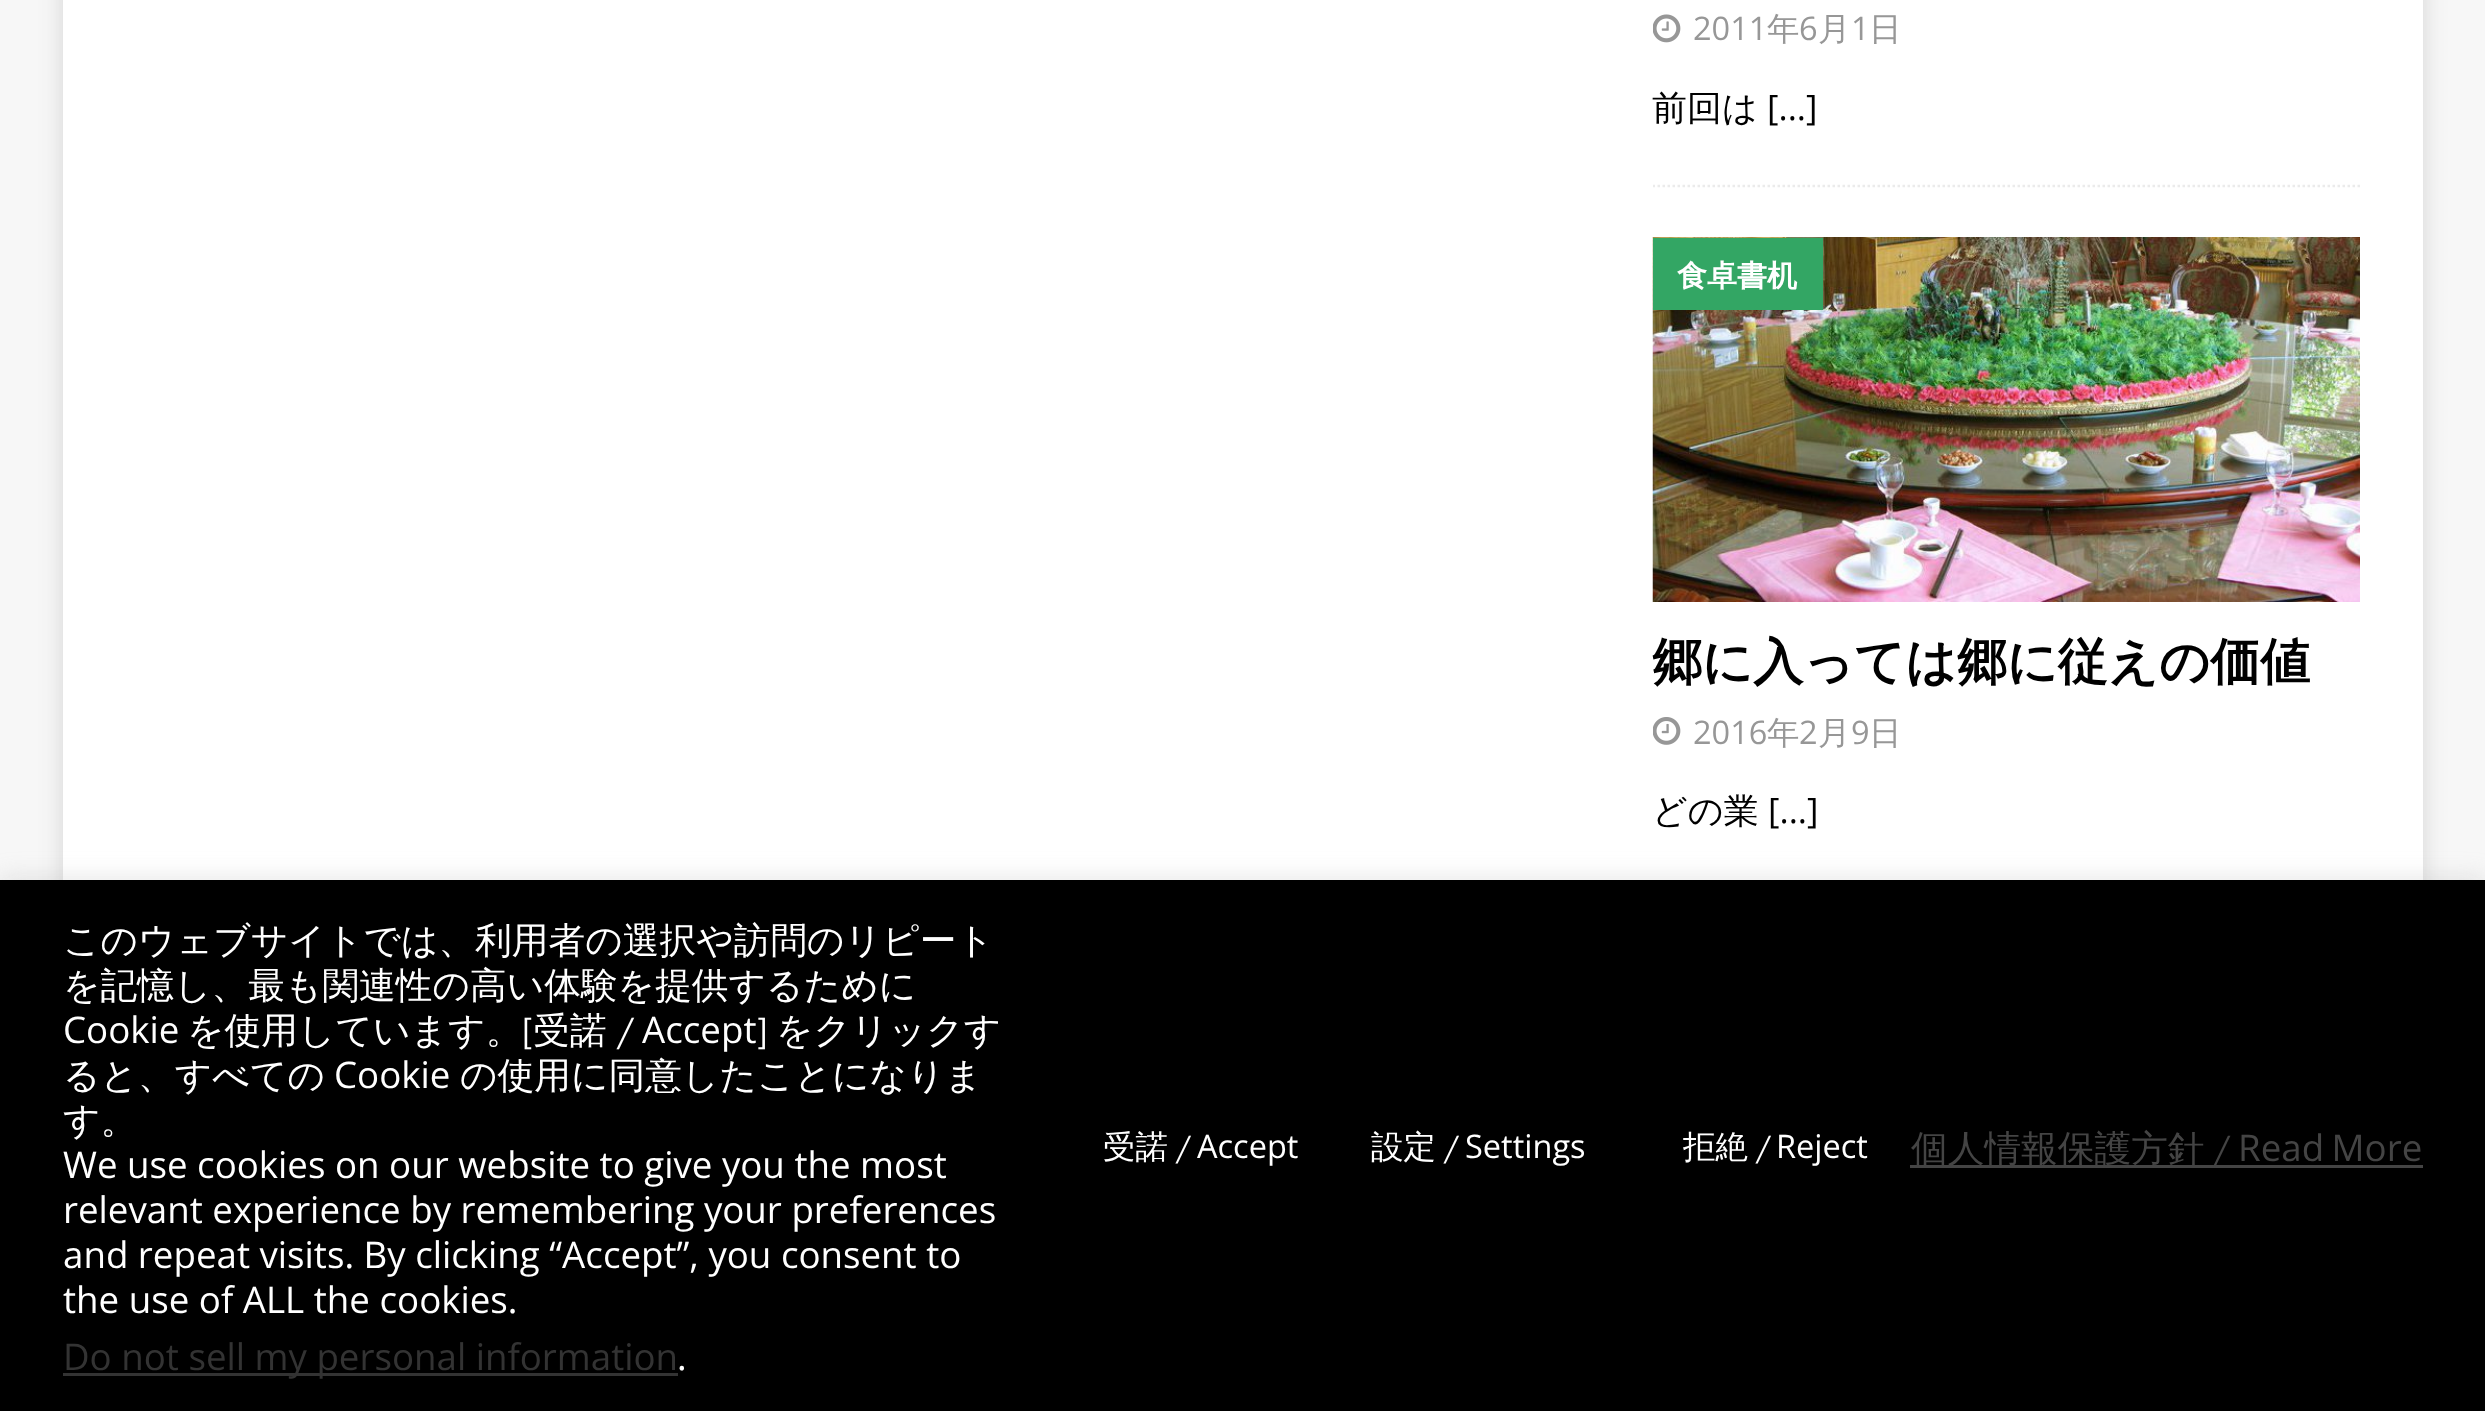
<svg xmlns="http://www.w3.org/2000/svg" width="2485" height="1411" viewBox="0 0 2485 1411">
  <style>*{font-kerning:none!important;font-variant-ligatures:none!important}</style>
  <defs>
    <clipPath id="clip1"><path d="M1653 0h707v893H1653z"/></clipPath>
  </defs>
  <rect width="100%" height="100%" fill="#f7f7f7"/>
  <path d="M63 -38h2360v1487H63z" fill="#3232322b" filter="blur(12.5px)"/>
  <path d="M63 0h2360v880H63z" fill="#fff"/>
  <g clip-path="url(#clip1)">
    <path d="M1652.5 186H2360" fill="none" stroke="#ebebeb" stroke-width="2.5" stroke-dasharray="2.5 2.5"/>
  </g>
  <image x="1653" y="14" width="28" height="29" href="img/1.png"/>
  <image x="1652" y="237" width="708" height="365" href="img/2.png"/>
  <path d="M1653 238h170v72H1653z" fill="#33a664"/>
  <image x="1653" y="717" width="28" height="28" href="img/3.png"/>
  <path d="M0 878h2485v532H0z" fill="#acabab4d" filter="blur(12.5px)"/>
  <path d="M0 880h2485v531H0z" fill="#000"/>
  <path d="M63 1373h615v3H63z" fill="#333"/>
  <path d="M1910 1165h513v3H1910z" fill="#444"/>
  <text x="1693" y="40" font-family="Open Sans" font-size="32.5" fill="#979797">2011</text>
  <text x="1767" y="40" font-family="WenQuanYi Zen Hei" font-size="32.5" font-weight="500" fill="#979797">年</text>
  <text x="1799" y="40" font-family="Open Sans" font-size="32.5" fill="#979797">6</text>
  <text x="1818" y="40" font-family="WenQuanYi Zen Hei" font-size="32.5" font-weight="500" fill="#979797">月</text>
  <text x="1851" y="40" font-family="Open Sans" font-size="32.5" fill="#979797">1</text>
  <text x="1869" y="40" font-family="WenQuanYi Zen Hei" font-size="32.5" font-weight="500" fill="#979797">日</text>
  <text x="1652" y="120" font-family="WenQuanYi Zen Hei" font-size="35" font-weight="500" fill="#000">前回は</text>
  <text x="1767" y="120" font-family="Open Sans" font-size="35" fill="#000">[...]</text>
  <text x="1677" y="286" font-family="WenQuanYi Zen Hei" font-size="30" font-weight="bold" fill="#fff">食卓書机</text>
  <text x="1652" y="679" font-family="WenQuanYi Zen Hei" font-size="50" font-weight="bold" fill="#000">郷に入っては郷に従えの価値</text>
  <text x="1693" y="744" font-family="Open Sans" font-size="32.5" fill="#979797">2016</text>
  <text x="1767" y="744" font-family="WenQuanYi Zen Hei" font-size="32.5" font-weight="500" fill="#979797">年</text>
  <text x="1799" y="744" font-family="Open Sans" font-size="32.5" fill="#979797">2</text>
  <text x="1818" y="744" font-family="WenQuanYi Zen Hei" font-size="32.5" font-weight="500" fill="#979797">月</text>
  <text x="1851" y="744" font-family="Open Sans" font-size="32.5" fill="#979797">9</text>
  <text x="1869" y="744" font-family="WenQuanYi Zen Hei" font-size="32.5" font-weight="500" fill="#979797">日</text>
  <text x="1652" y="823" font-family="WenQuanYi Zen Hei" font-size="35" font-weight="500" fill="#000">どの業</text>
  <text x="1768" y="823" font-family="Open Sans" font-size="35" fill="#000">[...]</text>
  <g font-family="WenQuanYi Zen Hei" font-size="36.7" font-weight="500" fill="#fff">
    <text x="63" y="953">このウェブサイトでは、利用者の選択や訪問のリピート</text>
    <text x="63" y="998">を記憶し、最も関連性の高い体験を提供するために</text>
  </g>
  <text x="63" y="1043" font-family="Open Sans" font-size="36.7" fill="#fff">Cookie</text>
  <text x="187" y="1043" word-spacing="-2" font-family="WenQuanYi Zen Hei" font-size="36.7" font-weight="500" fill="#fff">を使用しています。[受諾 /</text>
  <text x="642" y="1043" font-family="Open Sans" font-size="36.7" fill="#fff">Accept</text>
  <g font-family="WenQuanYi Zen Hei" font-size="36.7" font-weight="500" fill="#fff">
    <text x="756" y="1043" word-spacing="-2">] をクリックす</text>
    <text x="63" y="1088">ると、すべての</text>
  </g>
  <text x="334" y="1088" font-family="Open Sans" font-size="36.7" fill="#fff">Cookie</text>
  <g font-family="WenQuanYi Zen Hei" font-size="36.7" font-weight="500" fill="#fff">
    <text x="460" y="1088">の使用に同意したことになりま</text>
    <text x="63" y="1133">す。</text>
  </g>
  <g font-family="Open Sans" font-size="36.7" fill="#fff">
    <text x="63" y="1178">We use cookies on our website to give you the most</text>
    <text x="63" y="1223">relevant experience by remembering your preferences</text>
    <text x="63" y="1268">and repeat visits. By clicking “Accept”, you consent to</text>
    <text x="63" y="1313">the use of ALL the cookies.</text>
  </g>
  <text x="63" y="1370" font-family="Open Sans" font-size="36.7" fill="#333">Do not sell my personal information</text>
  <text x="677" y="1370" font-family="Open Sans" font-size="36.7" fill="#fff">.</text>
  <text x="1103" y="1158" word-spacing="-3" font-family="WenQuanYi Zen Hei" font-size="32.5" font-weight="500" fill="#fff">受諾 /</text>
  <text x="1197" y="1158" font-family="Open Sans" font-size="32.5" fill="#fff">Accept</text>
  <text x="1371" y="1158" word-spacing="-3" font-family="WenQuanYi Zen Hei" font-size="32.5" font-weight="500" fill="#fff">設定 /</text>
  <text x="1465" y="1158" font-family="Open Sans" font-size="32.5" fill="#fff">Settings</text>
  <text x="1683" y="1158" word-spacing="-3" font-family="WenQuanYi Zen Hei" font-size="32.5" font-weight="500" fill="#fff">拒絶 /</text>
  <text x="1776" y="1158" font-family="Open Sans" font-size="32.5" fill="#fff">Reject</text>
  <g font-family="WenQuanYi Zen Hei" font-size="36.7" font-weight="500" fill="#444">
    <text x="1911" y="1161">個人情報保護方針</text>
    <text x="2212" y="1161">/</text>
  </g>
  <text x="2238" y="1161" word-spacing="-2" font-family="Open Sans" font-size="36.7" fill="#444">Read More</text>
</svg>
